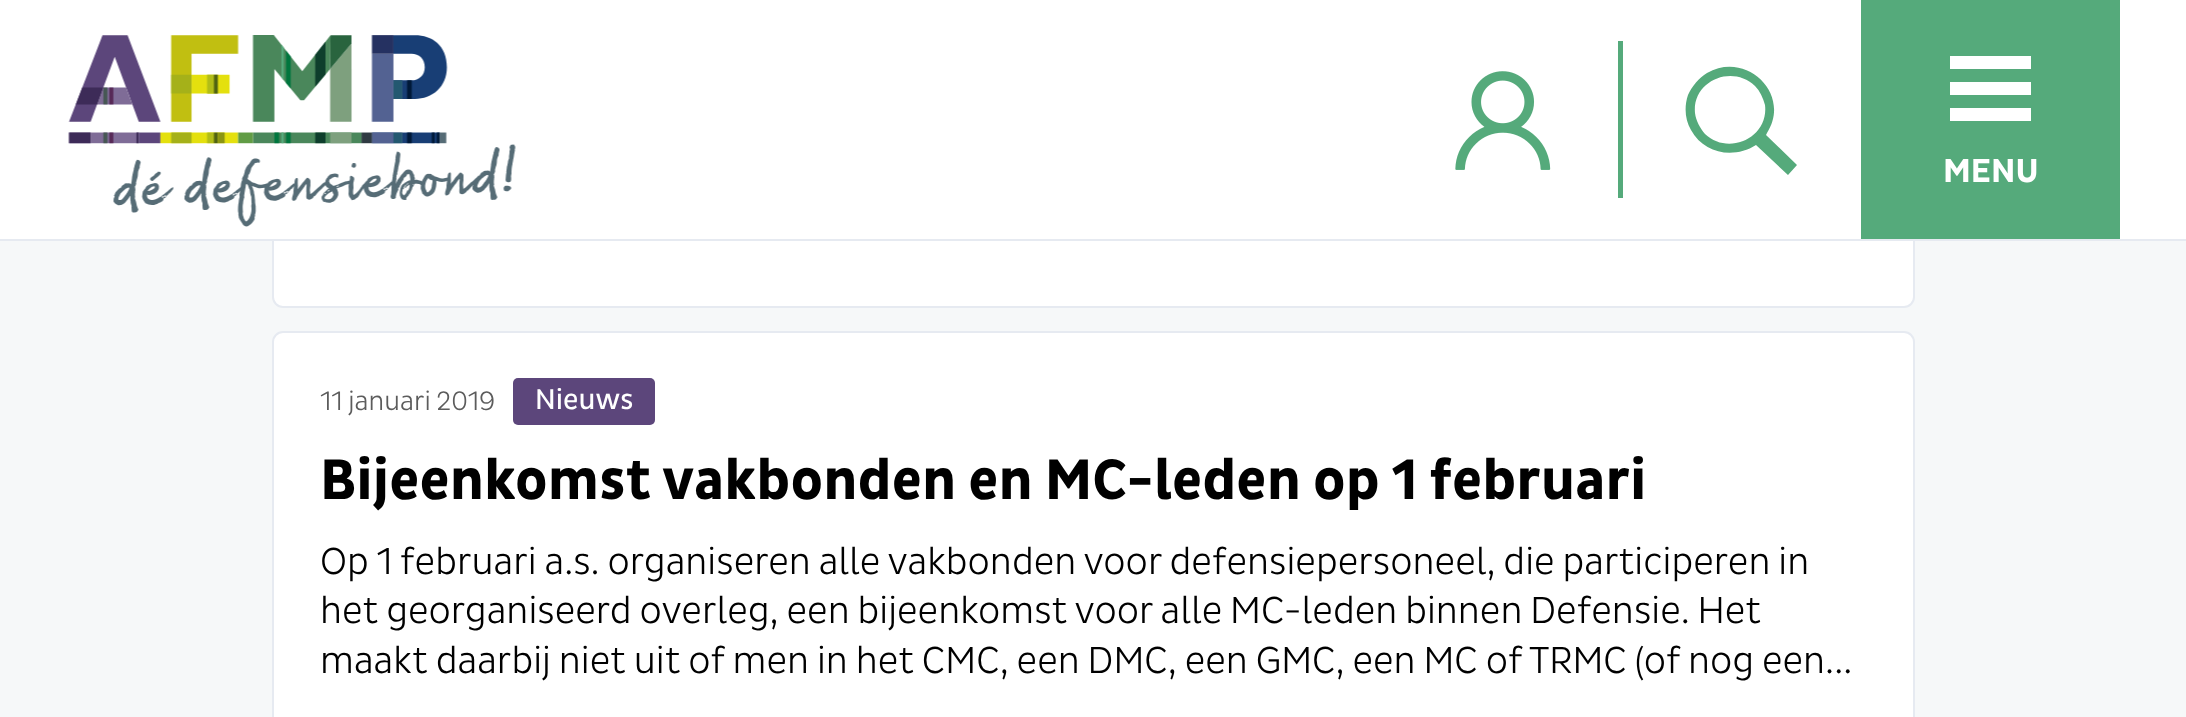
<svg xmlns="http://www.w3.org/2000/svg" width="2186" height="717" viewBox="0 0 2186 717">
  <rect width="100%" height="100%" fill="#f6f8f9"/>
  <rect x="273" y="-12" width="1641" height="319" rx="10" fill="#fff" stroke="#e6eaf1" stroke-width="2"/>
  <path d="M0 239h2186v2H0z" fill="#e6eaf1"/>
  <path d="M0 0h2186v239H0z" fill="#fff"/>
  <image x="68" y="35" width="448" height="192" href="img/1.png"/>
  <image x="1455" y="71" width="96" height="99" href="img/2.png"/>
  <path d="M1618 41h5v157H1618z" fill="#55aa7b"/>
  <path d="M1767 133C1792 94 1746 50 1707 73C1699 78 1692 86 1688 95C1684 107 1685 120 1691 130C1704 154 1734 159 1756 145L1788 175L1797 165L1766 135ZM1755 86C1760 91 1763 98 1765 105C1769 138 1728 156 1705 134C1700 128 1696 121 1695 113C1692 81 1732 64 1755 86Z" fill="#55aa7b"/>
  <path d="M1861 0h259v239H1861z" fill="#55aa7b"/>
  <path d="M1950 56H2031V69H1950ZM1950 82H2031V95H1950ZM1950 108H2031V121H1950Z" fill="#fff"/>
  <rect x="273" y="332" width="1641" height="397" rx="10" fill="#fff" stroke="#e6eaf1" stroke-width="2"/>
  <rect x="513" y="378" width="142" height="47" rx="5" fill="#5c467b"/>
  <text x="1943" y="182" font-family="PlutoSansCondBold" font-size="34" fill="#fff">MENU</text>
  <text x="320" y="410" font-family="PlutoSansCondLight" font-size="27.25" fill="#5c5c5c">11 januari 2019</text>
  <text x="535" y="409" font-family="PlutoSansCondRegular" font-size="29" fill="#fff">Nieuws</text>
  <text x="320" y="499" font-family="PlutoSansCondBold" font-size="58.1" fill="#000">Bijeenkomst vakbonden en MC-leden op 1 februari</text>
  <g font-family="PlutoSansCondLight" font-size="38.25" fill="#000">
    <text x="320" y="574">Op 1 februari a.s. organiseren alle vakbonden voor defensiepersoneel, die participeren in</text>
    <text x="320" y="623">het georganiseerd overleg, een bijeenkomst voor alle MC-leden binnen Defensie. Het</text>
    <text x="320" y="673">maakt daarbij niet uit of men in het CMC, een DMC, een GMC, een MC of TRMC (of nog een...</text>
  </g>
</svg>
